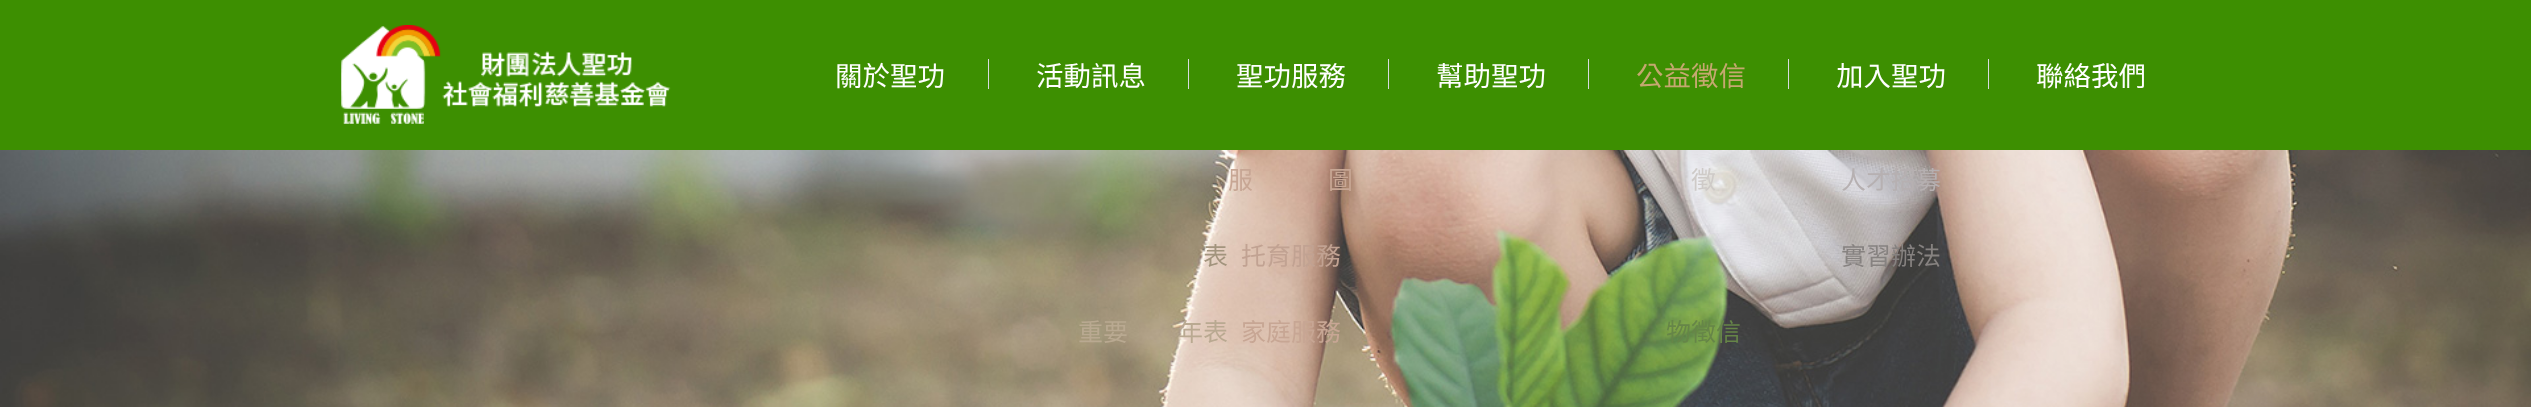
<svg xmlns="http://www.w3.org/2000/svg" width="2531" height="407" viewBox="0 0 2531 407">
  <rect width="100%" height="100%" fill="#fff"/>
  <path d="M0 0h2531v150H0z" fill="#3d8f01"/>
  <image x="341" y="25" width="330" height="99" href="img/1.png"/>
  <path d="M988 59h1v30H988z" fill="#d6dbdf"/>
  <path d="M1188 59h1v30H1188z" fill="#d6dbdf"/>
  <path d="M1388 59h1v30H1388z" fill="#d6dbdf"/>
  <path d="M1588 59h1v30H1588z" fill="#d6dbdf"/>
  <path d="M1788 59h1v30H1788z" fill="#d6dbdf"/>
  <path d="M1988 59h1v30H1988z" fill="#d6dbdf"/>
  <image x="0" y="150" width="2531" height="257" href="img/2.png"/>
  <text x="835" y="86" font-family="Noto Sans TC" font-size="27.5" fill="#fff">關於聖功</text>
  <text x="1203" y="265" font-family="Noto Sans TC" font-size="25" fill="#a2947d">表</text>
  <g font-family="Noto Sans TC" font-size="25" fill="#b9a991">
    <text x="1078" y="341">重要</text>
    <text x="1178" y="341">年表</text>
  </g>
  <g font-family="Noto Sans TC" font-size="27.5" fill="#fff">
    <text x="1036" y="86">活動訊息</text>
    <text x="1236" y="86">聖功服務</text>
  </g>
  <g font-family="Noto Sans TC" font-size="25" fill="#c7a694">
    <text x="1228" y="189">服</text>
    <text x="1328" y="189">圖</text>
  </g>
  <text x="1241" y="265" font-family="Noto Sans TC" font-size="25" fill="#c1a292">托育服務</text>
  <text x="1241" y="341" font-family="Noto Sans TC" font-size="25" fill="#c7a694">家庭服務</text>
  <text x="1436" y="86" font-family="Noto Sans TC" font-size="27.5" fill="#fff">幫助聖功</text>
  <text x="1636" y="86" font-family="Noto Sans TC" font-size="27.5" fill="#c5a870">公益徵信</text>
  <text x="1691" y="189" font-family="Noto Sans TC" font-size="25" fill="#cecac7">徵</text>
  <text x="1666" y="341" font-family="Noto Sans TC" font-size="25" fill="#668548">物徵信</text>
  <text x="1836" y="86" font-family="Noto Sans TC" font-size="27.5" fill="#fff">加入聖功</text>
  <text x="1841" y="189" font-family="Noto Sans TC" font-size="25" fill="#b6b0b1">人才招募</text>
  <text x="1841" y="265" font-family="Noto Sans TC" font-size="25" fill="#868280">實習辦法</text>
  <text x="2036" y="86" font-family="Noto Sans TC" font-size="27.5" fill="#fff">聯絡我們</text>
</svg>
